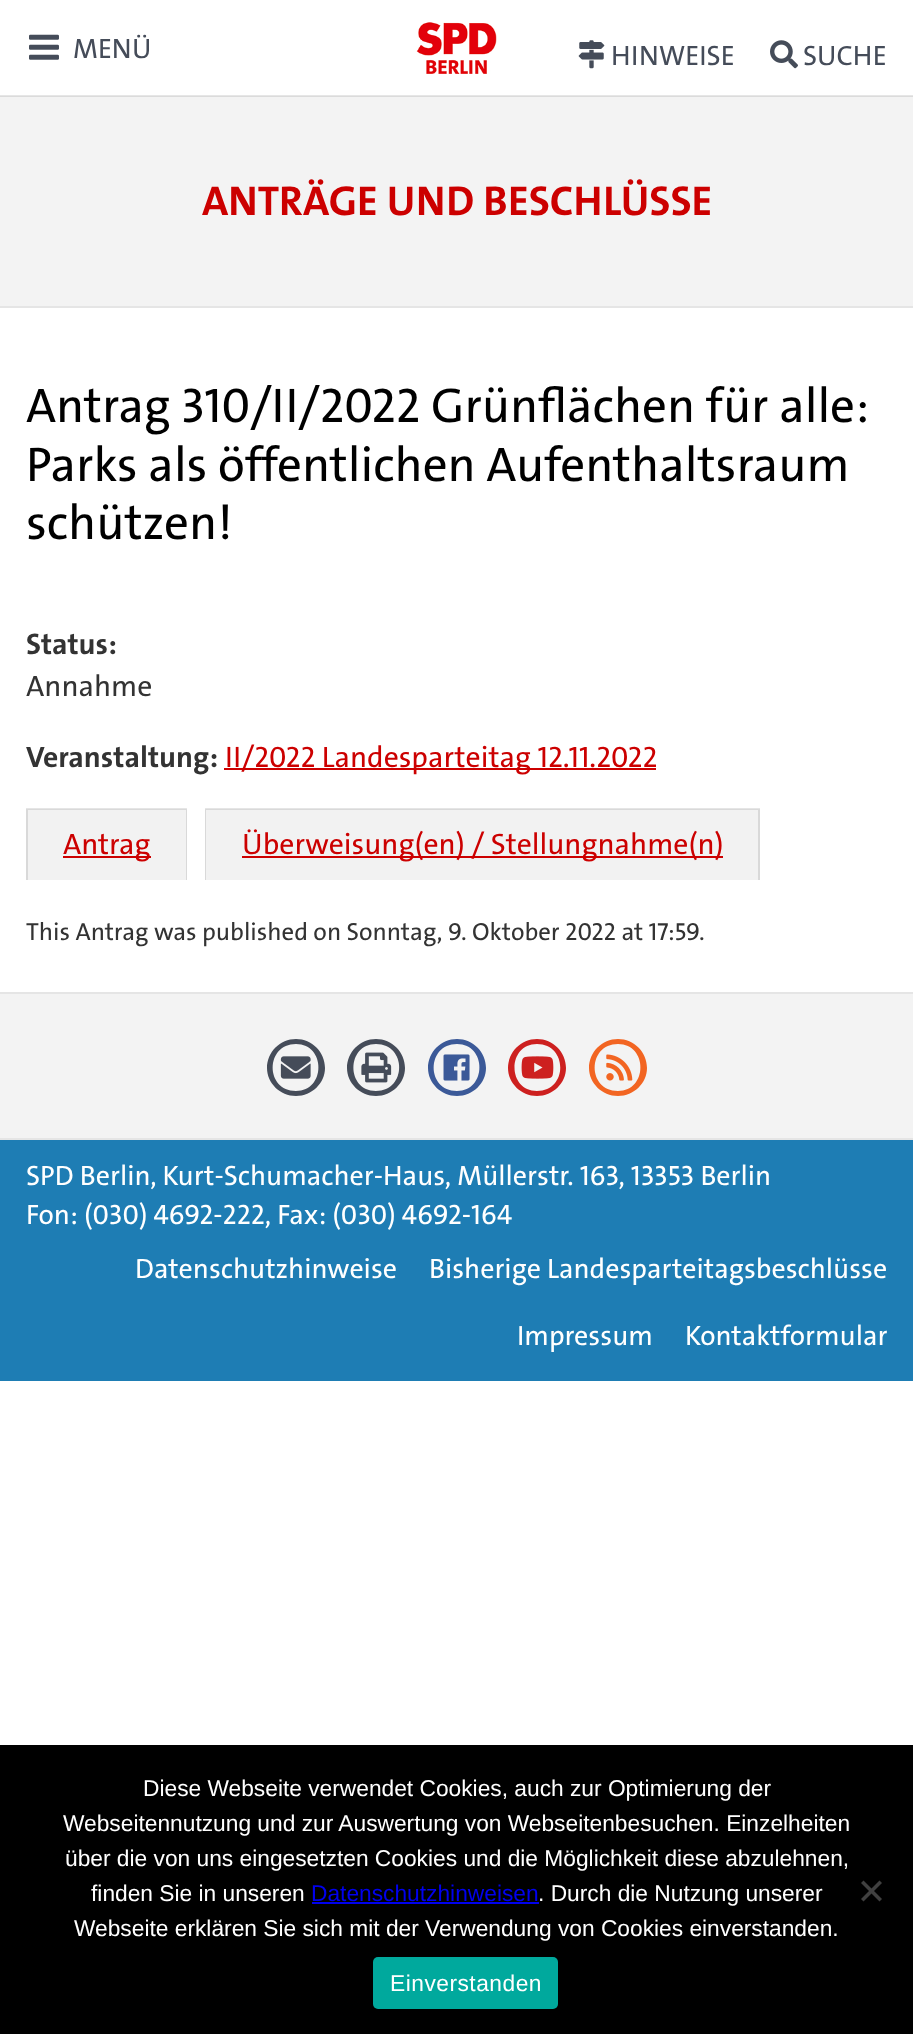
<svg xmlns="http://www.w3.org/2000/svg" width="913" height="2034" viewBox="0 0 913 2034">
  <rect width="100%" height="100%" fill="#fff"/>
  <path d="M0 97h913v209H0z" fill="#f3f3f3"/>
  <path d="M0 96h913v1H0z" fill="#dbdbdb"/>
  <path d="M0 95h913v1H0z" fill="#e6e6e6"/>
  <image x="29" y="34" width="30" height="26" href="img/1.png"/>
  <image x="416" y="22" width="81" height="52" href="img/2.png"/>
  <image x="578" y="40" width="27" height="29" href="img/3.png"/>
  <image x="770" y="40" width="28" height="29" href="img/4.png"/>
  <path d="M0 306h913v2H0z" fill="#e5e5e5"/>
  <path d="M224 768h432v2H224z" fill="#c00"/>
  <path d="M26 809h161v71H26z" fill="#f2f2f2"/>
  <path d="M26 808H187L186 810H28Z" fill="#0000001a"/>
  <path d="M187 808V880H186V810Z" fill="#0000001a"/>
  <path d="M26 880V808L28 810V880Z" fill="#0000001a"/>
  <path d="M63 856h88v2H63z" fill="#c00"/>
  <path d="M205 809h555v71H205z" fill="#f2f2f2"/>
  <path d="M205 808H760L758 810H206Z" fill="#0000001a"/>
  <path d="M760 808V880H758V810Z" fill="#0000001a"/>
  <path d="M205 880V808L206 810V880Z" fill="#0000001a"/>
  <path d="M242 856h481v2H242z" fill="#c00"/>
  <path d="M0 994h913v144H0z" fill="#f3f3f3"/>
  <path d="M0 992h913v2H0z" fill="#e5e5e5"/>
  <path d="M296 1039C280 1039 267 1052 267 1068C267 1083 280 1096 296 1096C312 1096 325 1083 325 1068C325 1052 312 1039 296 1039ZM296 1091C265 1091 265 1044 296 1044C326 1044 326 1091 296 1091Z" fill="#454c59"/>
  <image x="280" y="1056" width="31" height="23" href="img/5.png"/>
  <path d="M376 1039C360 1039 347 1052 347 1068C347 1083 360 1096 376 1096C392 1096 405 1083 405 1068C405 1052 392 1039 376 1039ZM376 1091C346 1091 346 1044 376 1044C407 1044 407 1091 376 1091Z" fill="#454c59"/>
  <image x="361" y="1052" width="31" height="31" href="img/6.png"/>
  <path d="M457 1039C441 1039 428 1052 428 1068C428 1083 441 1096 457 1096C473 1096 486 1083 486 1068C486 1052 473 1039 457 1039ZM457 1091C426 1091 426 1044 457 1044C487 1044 487 1091 457 1091Z" fill="#3b5998"/>
  <image x="443" y="1054" width="27" height="27" href="img/7.png"/>
  <path d="M537 1039C521 1039 508 1052 508 1068C508 1083 521 1096 537 1096C553 1096 566 1083 566 1068C566 1052 553 1039 537 1039ZM537 1091C507 1091 507 1044 537 1044C568 1044 568 1091 537 1091Z" fill="#cd201f"/>
  <image x="521" y="1056" width="33" height="23" href="img/8.png"/>
  <path d="M618 1039C602 1039 589 1052 589 1068C589 1083 602 1096 618 1096C634 1096 647 1083 647 1068C647 1052 634 1039 618 1039ZM618 1091C587 1091 587 1044 618 1044C648 1044 648 1091 618 1091Z" fill="#f26522"/>
  <image x="606" y="1054" width="27" height="27" href="img/9.png"/>
  <path d="M0 1140h913v241H0z" fill="#1e7db4"/>
  <path d="M0 1138h913v2H0z" fill="#e5e5e5"/>
  <path d="M0 1745h913v289H0z" fill="#000"/>
  <path d="M312 1902h227v2H312z" fill="#00e"/>
  <path d="M879.5 1880.5L882 1883L863.5 1901.5L861 1899Z" fill="#404040"/>
  <path d="M861 1883L863.5 1880.5L882 1899L879.5 1901.5Z" fill="#404040"/>
  <rect x="373" y="1957" width="185" height="52" rx="5" fill="#00a99d"/>
  <g font-family="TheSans" font-size="28" font-weight="500" fill="#454c59">
    <text x="73" y="58">MENÜ</text>
    <text x="611" y="65">HINWEISE</text>
    <text x="803" y="65">SUCHE</text>
  </g>
  <text x="202" y="215" font-family="TheSans" font-size="42" font-weight="bold" fill="#c00">ANTRÄGE UND BESCHLÜSSE</text>
  <g font-family="TheSans" font-size="49" font-weight="500" fill="#000">
    <text x="26" y="422">Antrag 310/II/2022 Grünflächen für alle:</text>
    <text x="26" y="481">Parks als öffentlichen Aufenthaltsraum</text>
    <text x="26" y="539">schützen!</text>
  </g>
  <text x="26" y="654" font-family="TheSans" font-size="29.75" font-weight="bold" fill="#333">Status:</text>
  <text x="26" y="696" font-family="TheSans" font-size="29.75" font-weight="500" fill="#333">Annahme</text>
  <text x="26" y="767" font-family="TheSans" font-size="29.75" font-weight="bold" fill="#333">Veranstaltung:</text>
  <g font-family="TheSans" font-size="29.75" font-weight="500" fill="#c00">
    <text x="225" y="767">II/2022 Landesparteitag 12.11.2022</text>
    <text x="63" y="854">Antrag</text>
    <text x="242" y="854">Überweisung(en) / Stellungnahme(n)</text>
  </g>
  <text x="26" y="940" font-family="TheSans" font-size="24.8" font-weight="500" fill="#333">This Antrag was published on Sonntag, 9. Oktober 2022 at 17:59.</text>
  <g font-family="TheSans" font-size="28" font-weight="500" fill="#fff">
    <text x="26" y="1185">SPD Berlin, Kurt-Schumacher-Haus, Müllerstr. 163, 13353 Berlin</text>
    <text x="26" y="1224">Fon: (030) 4692-222, Fax: (030) 4692-164</text>
    <text x="135" y="1278">Datenschutzhinweise</text>
    <text x="429" y="1278">Bisherige Landesparteitagsbeschlüsse</text>
    <text x="517" y="1345">Impressum</text>
    <text x="685" y="1345">Kontaktformular</text>
  </g>
  <g font-family="Liberation Sans" font-size="22.75" fill="#fff">
    <text x="143" y="1796">Diese Webseite verwendet Cookies, auch zur Optimierung der</text>
    <text x="63" y="1831">Webseitennutzung und zur Auswertung von Webseitenbesuchen. Einzelheiten</text>
    <text x="65" y="1866">über die von uns eingesetzten Cookies und die Möglichkeit diese abzulehnen,</text>
    <text x="91" y="1901">finden Sie in unseren</text>
  </g>
  <text x="311" y="1901" font-family="Liberation Sans" font-size="22.75" fill="#00e">Datenschutzhinweisen</text>
  <g font-family="Liberation Sans" font-size="22.75" fill="#fff">
    <text x="538" y="1901">. Durch die Nutzung unserer</text>
    <text x="74" y="1936">Webseite erklären Sie sich mit der Verwendung von Cookies einverstanden.</text>
  </g>
  <text x="390" y="1991" font-family="Liberation Sans" font-size="22.75" letter-spacing="0.5" fill="#fff">Einverstanden</text>
</svg>
